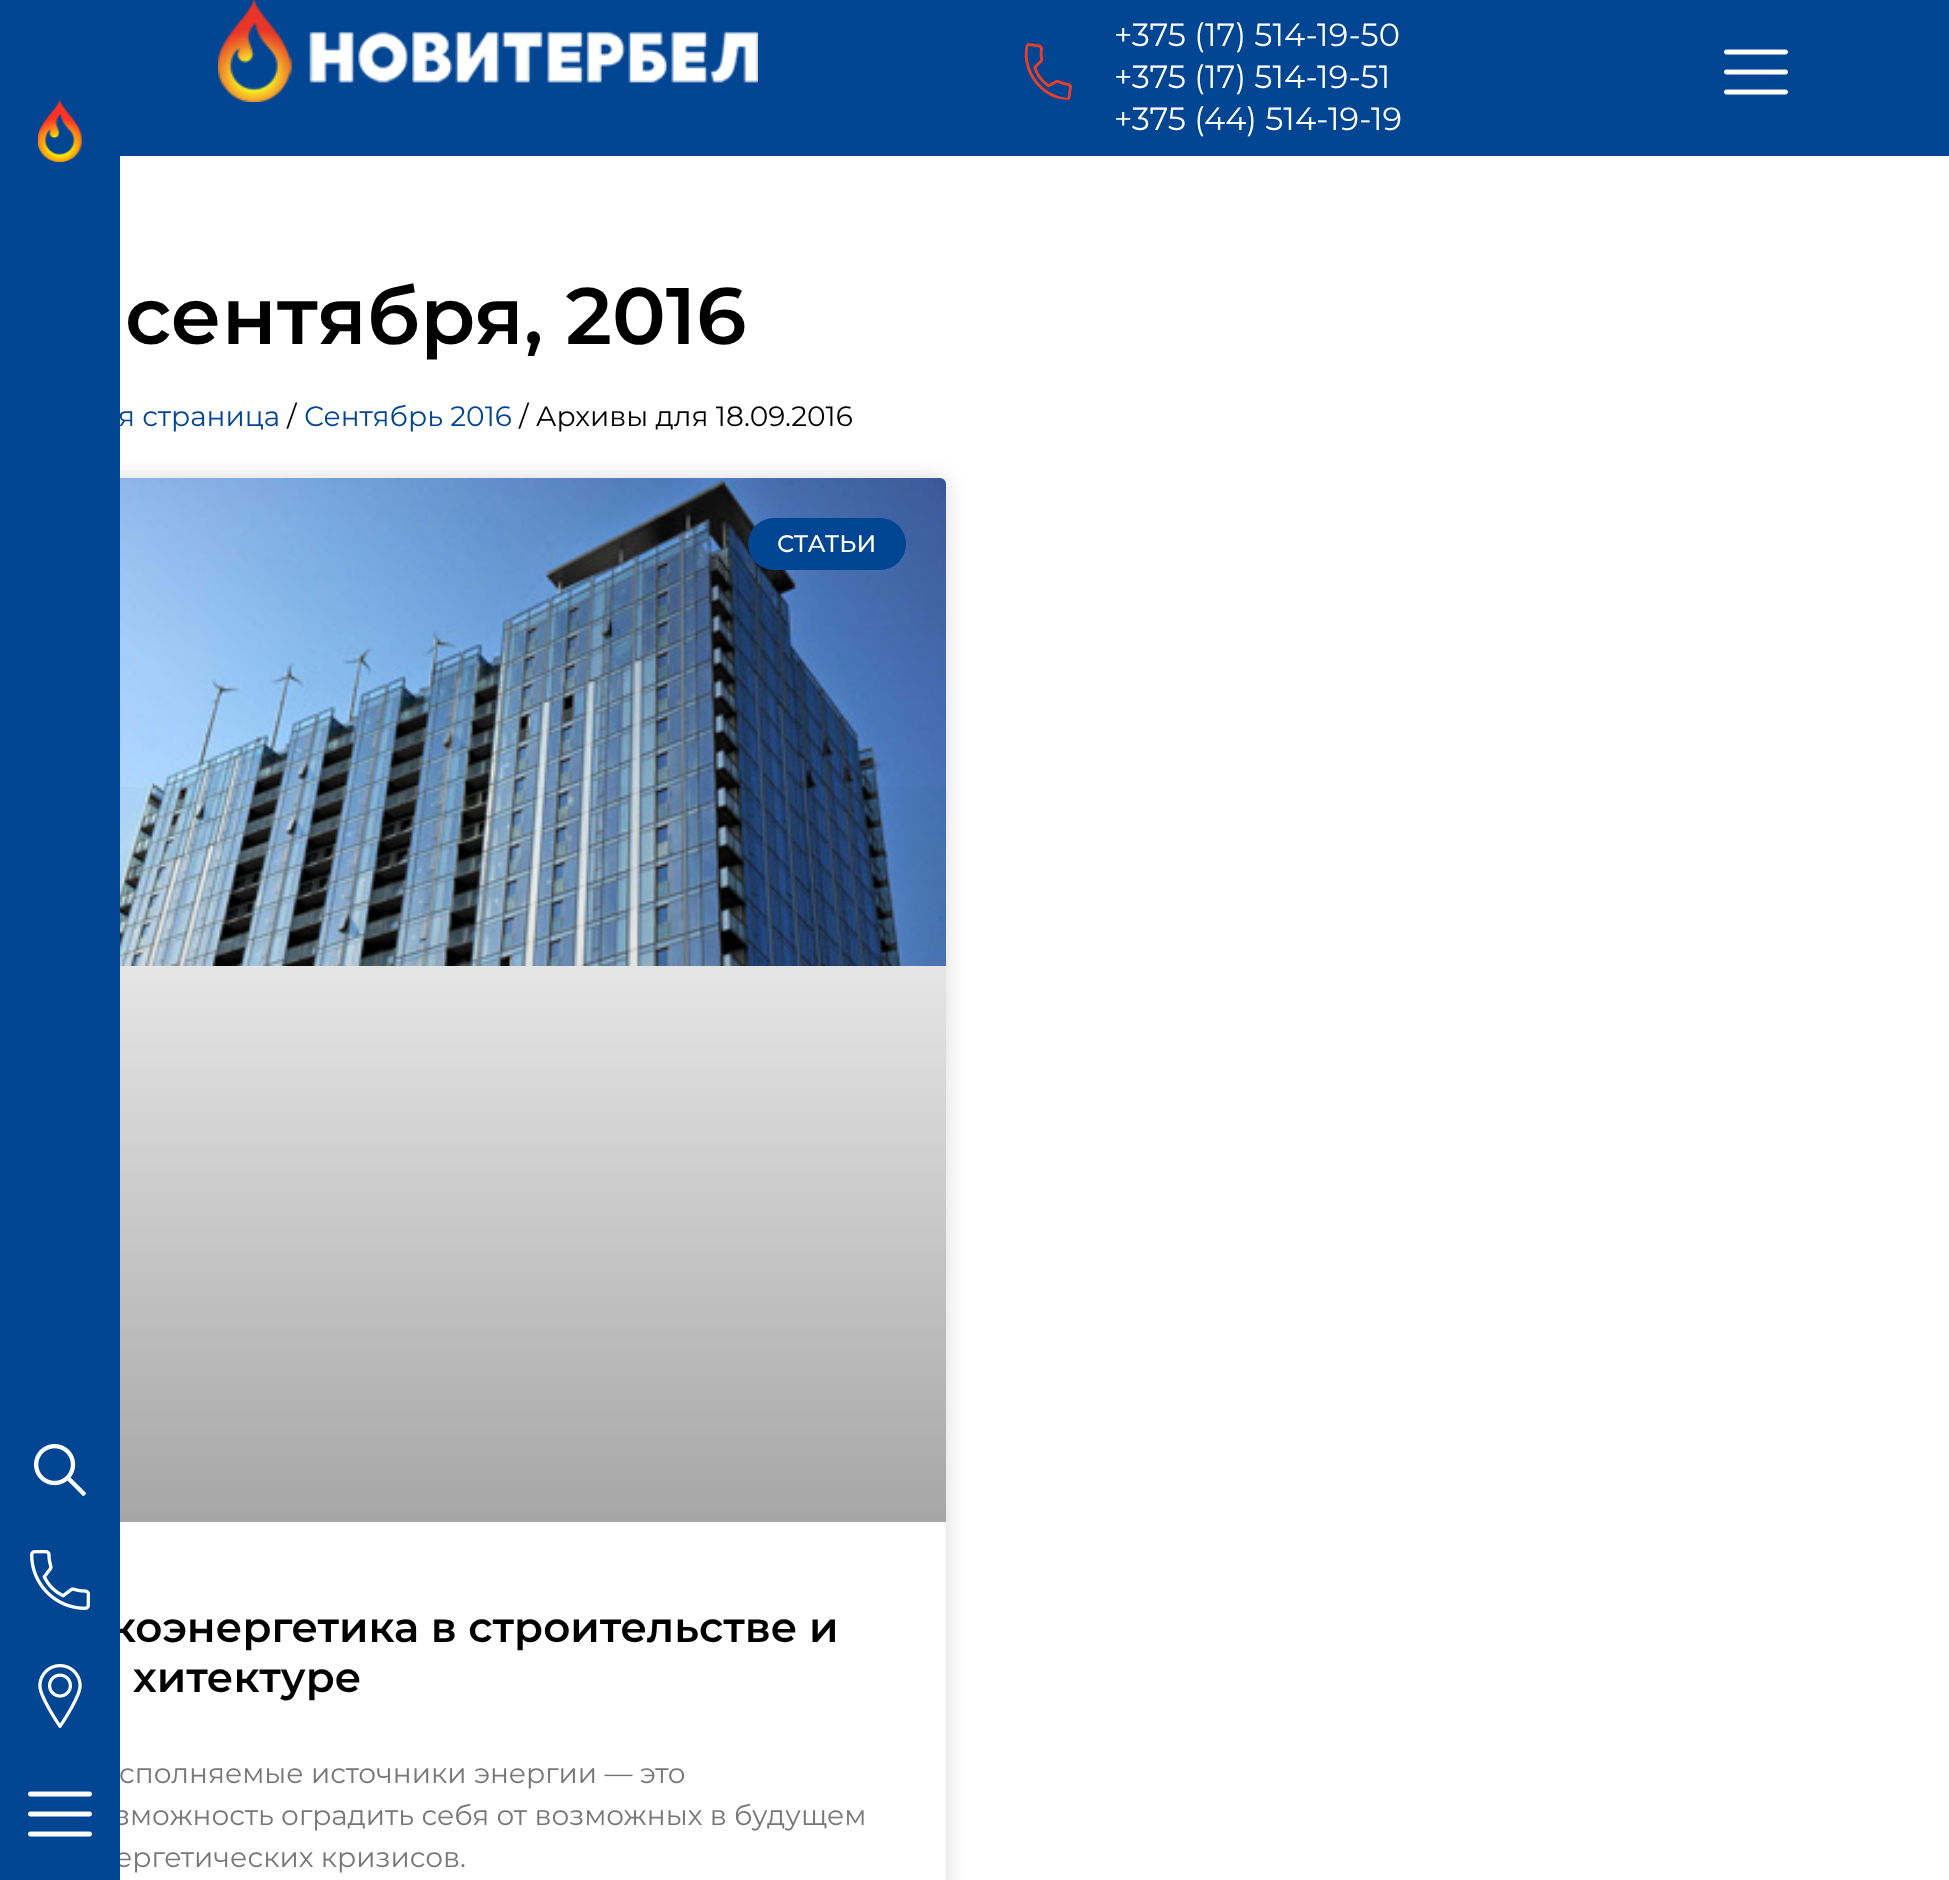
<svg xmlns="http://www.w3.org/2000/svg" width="1949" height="1880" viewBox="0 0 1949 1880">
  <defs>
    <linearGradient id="g1" gradientUnits="userSpaceOnUse" x1="483" y1="1522" x2="483" y2="478"><stop offset="0" stop-color="#000" stop-opacity="0.35"/><stop offset="0.75" stop-color="#000" stop-opacity="0"/></linearGradient>
  </defs>
  <rect width="100%" height="100%" fill="#fff"/>
  <path d="M120 0h1829v156H120z" fill="#024592"/>
  <image x="218" y="0" width="540" height="102" href="img/1.png"/>
  <image x="1024" y="43" width="48" height="57" href="img/2.png"/>
  <image x="1724" y="49" width="64" height="46" href="img/3.png"/>
  <rect x="20" y="478" width="926" height="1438" rx="6" fill="#00000026" filter="blur(10px)"/>
  <rect x="20" y="478" width="926" height="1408" rx="6" fill="#fff"/>
  <image x="120" y="478" width="826" height="488" href="img/8.png"/>
  <path d="M120 787h826v735H120z" fill="url(#g1)"/>
  <rect x="748" y="518" width="158" height="52" rx="26" fill="#024592"/>
  <g font-family="Montserrat" font-size="32" fill="#fff">
    <text x="1114" y="46">+375 (17) 514-19-50</text>
    <text x="1114" y="88">+375 (17) 514-19-51</text>
    <text x="1114" y="130">+375 (44) 514-19-19</text>
  </g>
  <text x="125" y="344" font-family="Montserrat" font-size="80" font-weight="600" fill="#000">сентября, 2016</text>
  <text x="118" y="426" font-family="Montserrat" font-size="28" fill="#024592">я страница</text>
  <text x="287" y="426" font-family="Montserrat" font-size="28" fill="#000">/</text>
  <text x="304" y="426" font-family="Montserrat" font-size="28" fill="#024592">Сентябрь 2016</text>
  <text x="519" y="426" font-family="Montserrat" font-size="28" fill="#000">/ Архивы для 18.09.2016</text>
  <text x="777" y="552" font-family="Montserrat" font-size="24" font-weight="500" fill="#fff">СТАТЬИ</text>
  <g font-family="Montserrat" font-size="42" font-weight="600" fill="#000">
    <text x="110" y="1642">коэнергетика в строительстве и</text>
    <text x="133" y="1692">хитектуре</text>
  </g>
  <g font-family="Montserrat" font-size="28" fill="#777">
    <text x="119" y="1783">сполняемые источники энергии — это</text>
    <text x="115" y="1825">зможность оградить себя от возможных в будущем</text>
    <text x="115" y="1867">ергетических кризисов.</text>
  </g>
  <path d="M0 0h120v1880H0z" fill="#024592"/>
  <image x="28" y="1791" width="64" height="46" href="img/3.png"/>
  <image x="38" y="1664" width="44" height="64" href="img/7.png"/>
  <image x="30" y="1550" width="60" height="60" href="img/6.png"/>
  <image x="34" y="1444" width="52" height="52" href="img/5.png"/>
  <image x="38" y="100" width="44" height="63" href="img/4.png"/>
</svg>
